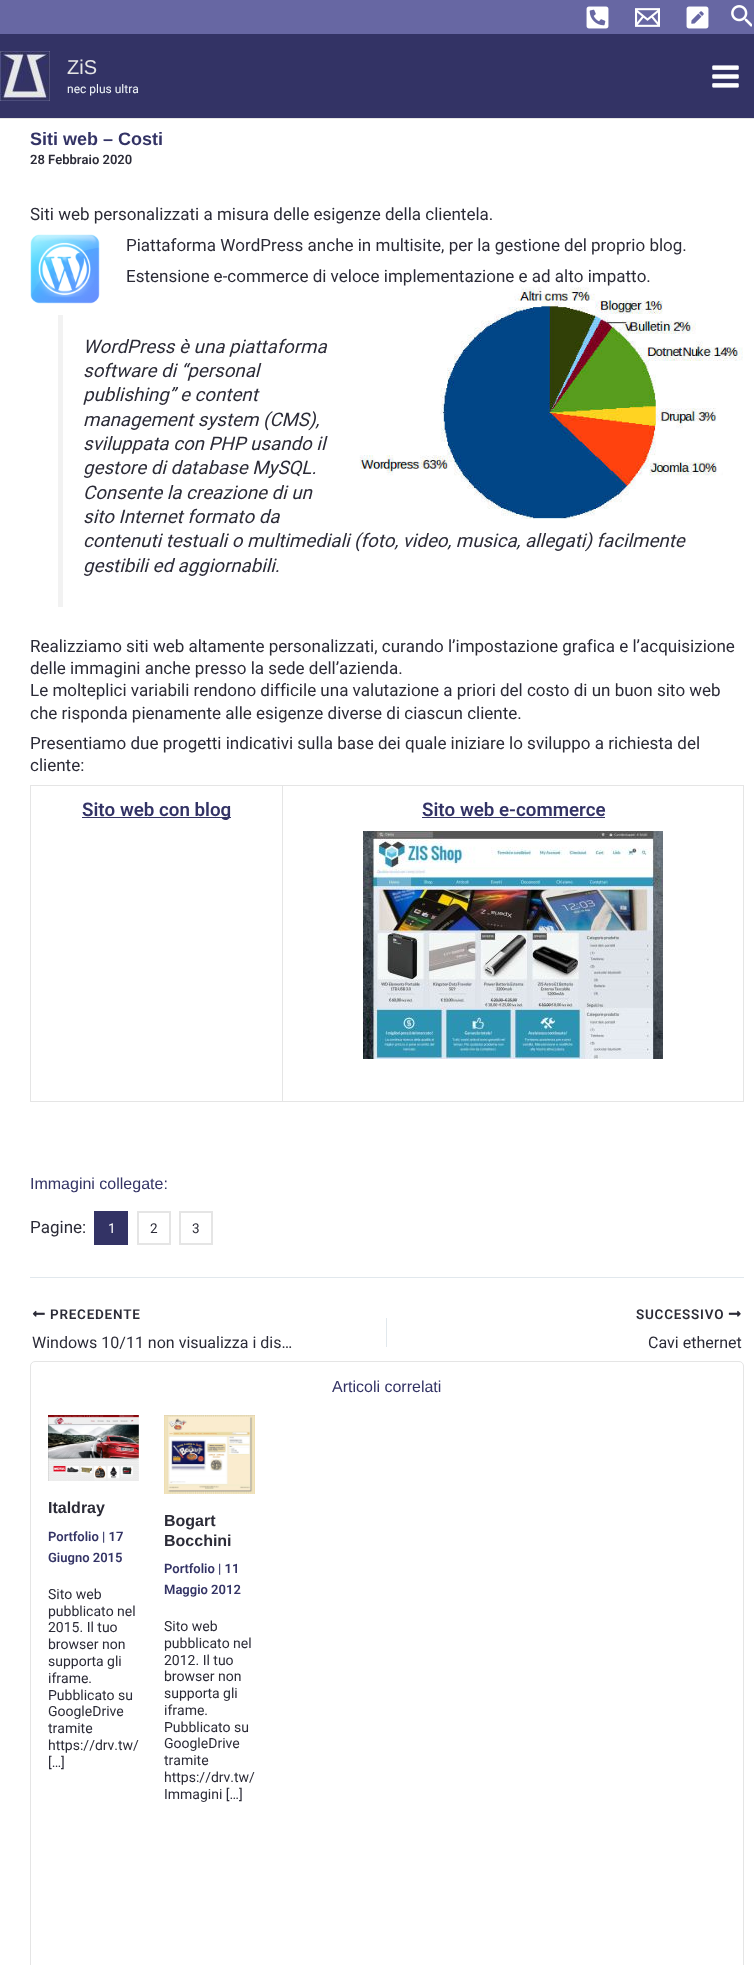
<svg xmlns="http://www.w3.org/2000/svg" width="754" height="1965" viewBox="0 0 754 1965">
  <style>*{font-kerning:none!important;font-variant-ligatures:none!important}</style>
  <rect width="100%" height="100%" fill="#fff"/>
  <path d="M0 0h754v34H0z" fill="#6767a3"/>
  <image x="586" y="6" width="23" height="23" href="img/1.png"/>
  <image x="635" y="8" width="25" height="19" href="img/2.png"/>
  <image x="686" y="6" width="23" height="23" href="img/3.png"/>
  <image x="731" y="5" width="21" height="22" href="img/4.png"/>
  <path d="M0 34h754v84H0z" fill="#333365"/>
  <path d="M0 118h754v1H0z" fill="#e5e5e5"/>
  <image x="0" y="51" width="50" height="50" href="img/5.png"/>
  <image x="712" y="65" width="27" height="23" href="img/6.png"/>
  <image x="30" y="234" width="70" height="70" href="img/7.png"/>
  <image x="359" y="287" width="384" height="232" href="img/8.png"/>
  <path d="M58 315h5v292H58z" fill="#f2f2f2"/>
  <path d="M30 785h714v1H30z" fill="#e5e5e5"/>
  <path d="M30 785h1v317H30z" fill="#e5e5e5"/>
  <path d="M282 786h1v316H282z" fill="#e5e5e5"/>
  <path d="M31 1101h252v1H31z" fill="#e5e5e5"/>
  <path d="M82 817h149v1H82z" fill="#333365"/>
  <path d="M743 786h1v316H743z" fill="#e5e5e5"/>
  <path d="M283 1101h461v1H283z" fill="#e5e5e5"/>
  <path d="M422 817h183v1H422z" fill="#333365"/>
  <image x="363" y="831" width="300" height="228" href="img/9.png"/>
  <path d="M94 1211h34v34H94z" fill="#333365"/>
  <path d="M138 1212h32v32H138z" fill="none" stroke="#e5e5e5" stroke-width="2"/>
  <path d="M180 1212h32v32H180z" fill="none" stroke="#e5e5e5" stroke-width="2"/>
  <path d="M30 1277h714v1H30z" fill="#e1e8ed"/>
  <image x="32" y="1310" width="13" height="7" href="img/10.png"/>
  <path d="M386 1318h1v29H386z" fill="#e1e8ed"/>
  <image x="728" y="1310" width="13" height="7" href="img/11.png"/>
  <rect x="30.5" y="1361.5" width="713" height="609" rx="4.5" fill="none" stroke="#e5e5e5"/>
  <image x="48" y="1415" width="91" height="66" href="img/12.png"/>
  <image x="164" y="1415" width="91" height="79" href="img/13.png"/>
  <text x="67" y="74" font-family="Liberation Sans" font-size="20" fill="#e5e5e5">ZiS</text>
  <text x="67" y="93" font-family="Roboto" font-size="12" fill="#f4f9fb">nec plus ultra</text>
  <text x="30" y="145" font-family="Liberation Sans" font-size="18" font-weight="bold" fill="#333365">Siti web – Costi</text>
  <text x="30" y="164" font-family="Roboto" font-size="13" font-weight="600" fill="#2b2b37">28 Febbraio 2020</text>
  <g font-family="Roboto" font-size="17" fill="#2b2b37">
    <text x="30" y="220">Siti web personalizzati a misura delle esigenze della clientela.</text>
    <text x="126" y="251">Piattaforma WordPress anche in multisite, per la gestione del proprio blog.</text>
    <text x="126" y="282">Estensione e-commerce di veloce implementazione e ad alto impatto.</text>
  </g>
  <g font-family="Roboto" font-size="18.7" font-style="italic" fill="#2b2b37">
    <text x="83" y="353">WordPress è una piattaforma</text>
    <text x="83" y="377">software di “personal</text>
    <text x="83" y="401">publishing” e content</text>
    <text x="83" y="426">management system (CMS),</text>
    <text x="83" y="450">sviluppata con PHP usando il</text>
    <text x="83" y="474">gestore di database MySQL.</text>
    <text x="83" y="499">Consente la creazione di un</text>
    <text x="83" y="523">sito Internet formato da</text>
    <text x="83" y="547">contenuti testuali o multimediali (foto, video, musica, allegati) facilmente</text>
    <text x="83" y="572">gestibili ed aggiornabili.</text>
  </g>
  <g font-family="Roboto" font-size="17" fill="#2b2b37">
    <text x="30" y="652">Realizziamo siti web altamente personalizzati, curando l’impostazione grafica e l’acquisizione</text>
    <text x="30" y="674">delle immagini anche presso la sede dell’azienda.</text>
    <text x="30" y="696">Le molteplici variabili rendono difficile una valutazione a priori del costo di un buon sito web</text>
    <text x="30" y="719">che risponda pienamente alle esigenze diverse di ciascun cliente.</text>
    <text x="30" y="749">Presentiamo due progetti indicativi sulla base dei quale iniziare lo sviluppo a richiesta del</text>
    <text x="30" y="771">cliente:</text>
  </g>
  <g font-family="Roboto" font-size="18.75" font-weight="600" fill="#333365">
    <text x="82" y="816">Sito web con blog</text>
    <text x="422" y="816">Sito web e-commerce</text>
  </g>
  <text x="30" y="1189" font-family="Liberation Sans" font-size="16" fill="#333365">Immagini collegate:</text>
  <text x="30" y="1233" font-family="Roboto" font-size="17" fill="#2b2b37">Pagine:</text>
  <text x="108" y="1233" font-family="Roboto" font-size="13.5" fill="#fff">1</text>
  <g font-family="Roboto" font-size="13.5" fill="#2b2b37">
    <text x="150" y="1233">2</text>
    <text x="192" y="1233">3</text>
  </g>
  <text x="50" y="1319" font-family="Roboto" font-size="13.5" font-weight="600" letter-spacing="0.75" fill="#2b2b37">PRECEDENTE</text>
  <text x="32" y="1348" font-family="Roboto" font-size="16" fill="#2b2b37">Windows 10/11 non visualizza i dis…</text>
  <text x="636" y="1319" font-family="Roboto" font-size="13.5" font-weight="600" letter-spacing="0.75" fill="#2b2b37">SUCCESSIVO</text>
  <text x="648" y="1348" font-family="Roboto" font-size="16" fill="#2b2b37">Cavi ethernet</text>
  <text x="332" y="1392" font-family="Liberation Sans" font-size="16" fill="#333365">Articoli correlati</text>
  <text x="48" y="1513" font-family="Liberation Sans" font-size="16" font-weight="bold" fill="#2b2b37">Italdray</text>
  <g font-family="Roboto" font-size="13" font-weight="600" fill="#333365">
    <text x="48" y="1541">Portfolio | 17</text>
    <text x="48" y="1562">Giugno 2015</text>
  </g>
  <g font-family="Roboto" font-size="14" fill="#2b2b37">
    <text x="48" y="1599">Sito web</text>
    <text x="48" y="1616">pubblicato nel</text>
    <text x="48" y="1632">2015.  Il tuo</text>
    <text x="48" y="1649">browser non</text>
    <text x="48" y="1666">supporta gli</text>
    <text x="48" y="1683">iframe. </text>
    <text x="48" y="1700">Pubblicato su</text>
    <text x="48" y="1716">GoogleDrive</text>
    <text x="48" y="1733">tramite</text>
    <text x="48" y="1750">https://drv.tw/</text>
    <text x="48" y="1767">[…]</text>
  </g>
  <g font-family="Liberation Sans" font-size="16" font-weight="bold" fill="#2b2b37">
    <text x="164" y="1526">Bogart</text>
    <text x="164" y="1546">Bocchini</text>
  </g>
  <g font-family="Roboto" font-size="13" font-weight="600" fill="#333365">
    <text x="164" y="1573">Portfolio | 11</text>
    <text x="164" y="1594">Maggio 2012</text>
  </g>
  <g font-family="Roboto" font-size="14" fill="#2b2b37">
    <text x="164" y="1631">Sito web</text>
    <text x="164" y="1648">pubblicato nel</text>
    <text x="164" y="1665">2012. Il tuo</text>
    <text x="164" y="1681">browser non</text>
    <text x="164" y="1698">supporta gli</text>
    <text x="164" y="1715">iframe. </text>
    <text x="164" y="1732">Pubblicato su</text>
    <text x="164" y="1748">GoogleDrive</text>
    <text x="164" y="1765">tramite</text>
    <text x="164" y="1782">https://drv.tw/</text>
    <text x="164" y="1799">Immagini […]</text>
  </g>
</svg>
